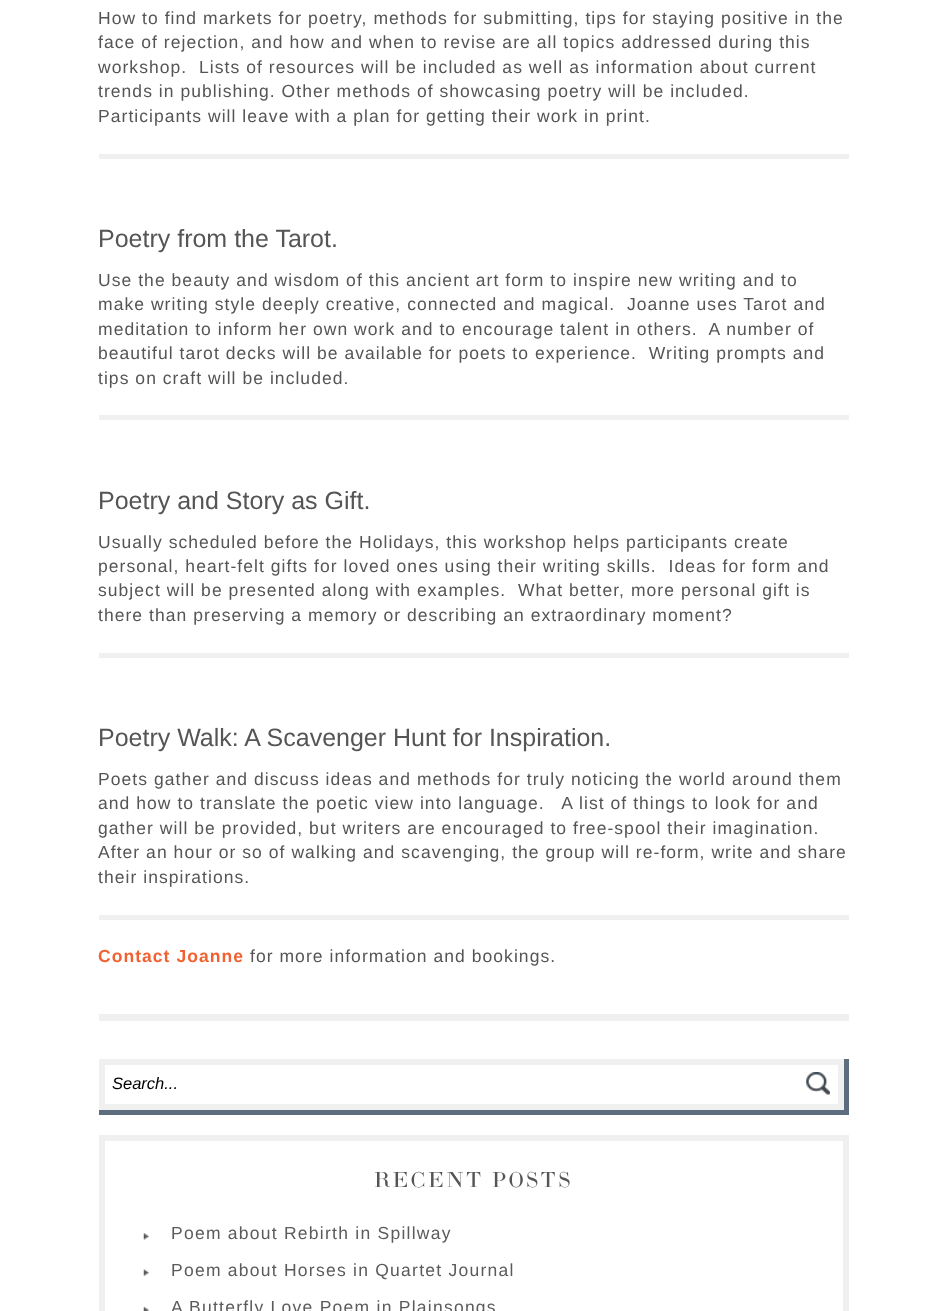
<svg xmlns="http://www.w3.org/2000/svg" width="946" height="1311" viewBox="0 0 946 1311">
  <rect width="100%" height="100%" fill="#fff"/>
  <path d="M99 1014h750v7H99z" fill="#f0f0f0"/>
  <path d="M99 154h750v5H99z" fill="#f0f0f0"/>
  <path d="M99 415h750v5H99z" fill="#f0f0f0"/>
  <path d="M99 653h750v5H99z" fill="#f0f0f0"/>
  <path d="M99 915h750v5H99z" fill="#f0f0f0"/>
  <path d="M99 1110V1115H849V1059H844V1110Z" fill="#5c6d7e"/>
  <path d="M102 1062h739v45H102z" fill="none" stroke="#f0f0f0" stroke-width="6"/>
  <image x="806" y="1072" width="24" height="23" href="img/1.png"/>
  <path d="M102 1138h744v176H102z" fill="none" stroke="#f0f0f0" stroke-width="6"/>
  <image x="143" y="1233" width="6" height="7" href="img/2.png"/>
  <image x="143" y="1269" width="6" height="7" href="img/3.png"/>
  <image x="143" y="1307" width="6" height="4" href="img/4.png"/>
  <g font-family="Liberation Sans" font-size="17.5" letter-spacing="1.05" fill="#565454">
    <text x="98" y="24">How to find markets for poetry, methods for submitting, tips for staying positive in the</text>
    <text x="98" y="48">face of rejection, and how and when to revise are all topics addressed during this</text>
    <text x="98" y="73" xml:space="preserve">workshop.  Lists of resources will be included as well as information about current</text>
    <text x="98" y="97">trends in publishing. Other methods of showcasing poetry will be included.</text>
    <text x="98" y="122">Participants will leave with a plan for getting their work in print.</text>
  </g>
  <text x="98" y="247" font-family="Liberation Sans" font-size="25" fill="#565454">Poetry from the Tarot.</text>
  <g font-family="Liberation Sans" font-size="17.5" letter-spacing="1.05" fill="#565454">
    <text x="98" y="286">Use the beauty and wisdom of this ancient art form to inspire new writing and to</text>
    <text x="98" y="310" xml:space="preserve">make writing style deeply creative, connected and magical.  Joanne uses Tarot and</text>
    <text x="98" y="335" xml:space="preserve">meditation to inform her own work and to encourage talent in others.  A number of</text>
    <text x="98" y="359" xml:space="preserve">beautiful tarot decks will be available for poets to experience.  Writing prompts and</text>
    <text x="98" y="384">tips on craft will be included.</text>
  </g>
  <text x="98" y="509" font-family="Liberation Sans" font-size="25" fill="#565454">Poetry and Story as Gift.</text>
  <g font-family="Liberation Sans" font-size="17.5" letter-spacing="1.05" fill="#565454">
    <text x="98" y="548">Usually scheduled before the Holidays, this workshop helps participants create</text>
    <text x="98" y="572" xml:space="preserve">personal, heart-felt gifts for loved ones using their writing skills.  Ideas for form and</text>
    <text x="98" y="596" xml:space="preserve">subject will be presented along with examples.  What better, more personal gift is</text>
    <text x="98" y="621">there than preserving a memory or describing an extraordinary moment?</text>
  </g>
  <text x="98" y="746" font-family="Liberation Sans" font-size="25" fill="#565454">Poetry Walk: A Scavenger Hunt for Inspiration.</text>
  <g font-family="Liberation Sans" font-size="17.5" letter-spacing="1.05" fill="#565454">
    <text x="98" y="785">Poets gather and discuss ideas and methods for truly noticing the world around them</text>
    <text x="98" y="809" xml:space="preserve">and how to translate the poetic view into language.   A list of things to look for and</text>
    <text x="98" y="834">gather will be provided, but writers are encouraged to free-spool their imagination.</text>
    <text x="98" y="858">After an hour or so of walking and scavenging, the group will re-form, write and share</text>
    <text x="98" y="883">their inspirations.</text>
  </g>
  <text x="98" y="962" font-family="Liberation Sans" font-size="17.5" font-weight="bold" letter-spacing="1.05" fill="#f16233">Contact Joanne</text>
  <text x="250" y="962" font-family="Liberation Sans" font-size="17.5" letter-spacing="1.05" fill="#565454">for more information and bookings.</text>
  <text x="112" y="1089" font-family="Liberation Sans" font-size="16.5" font-style="italic" fill="#000">Search...</text>
  <text x="374" y="1187" font-family="'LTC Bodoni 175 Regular'" font-size="21.25" letter-spacing="2.5" fill="#565454">RECENT POSTS</text>
  <g font-family="Liberation Sans" font-size="17.5" letter-spacing="1.25" fill="#5b5b5b">
    <text x="171" y="1239">Poem about Rebirth in Spillway</text>
    <text x="171" y="1276">Poem about Horses in Quartet Journal</text>
    <text x="171" y="1313">A Butterfly Love Poem in Plainsongs</text>
  </g>
</svg>
